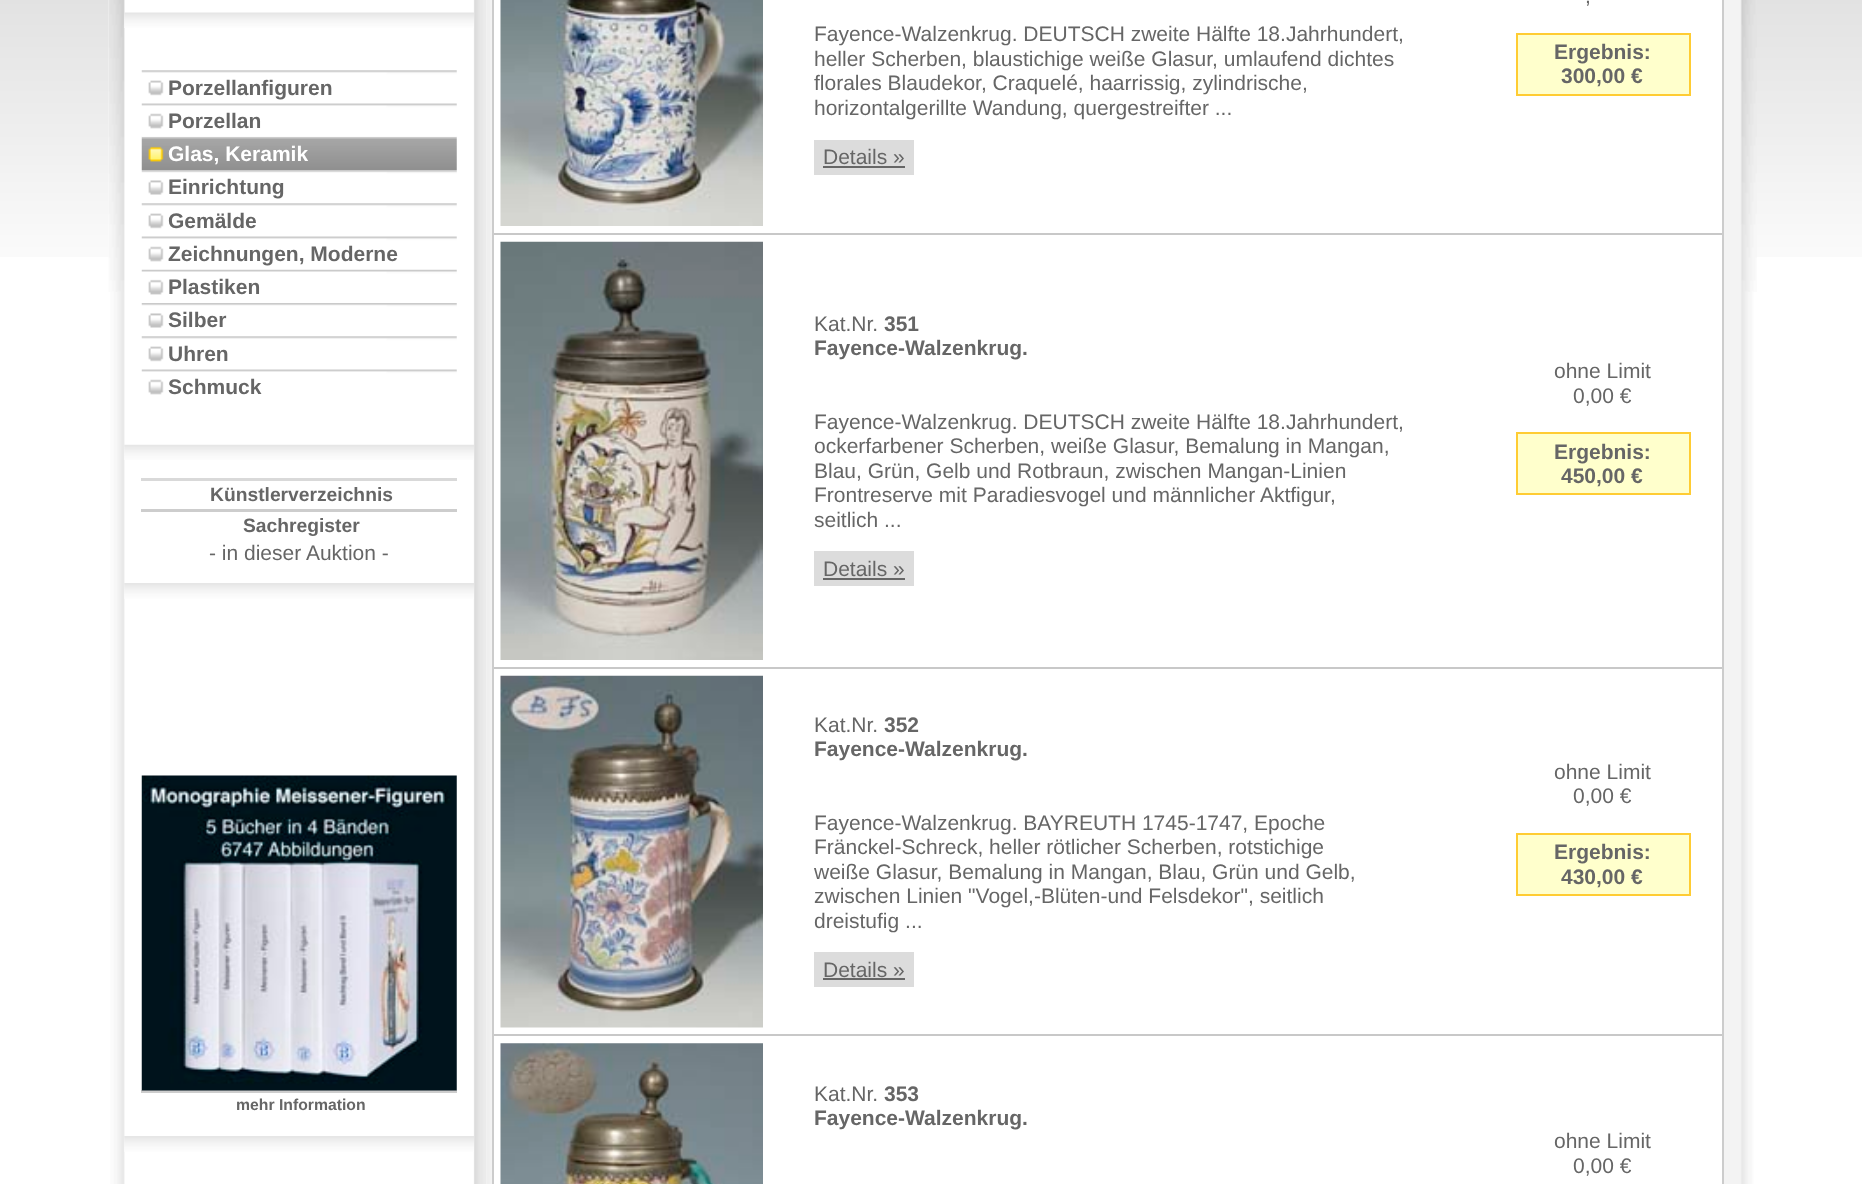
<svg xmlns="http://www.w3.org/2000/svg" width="1862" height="1184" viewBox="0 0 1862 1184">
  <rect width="100%" height="100%" fill="#fff"/>
  <image x="0" y="0" width="1862" height="257" href="img/1.png"/>
  <image x="108" y="0" width="1646" height="1184" href="img/2.png"/>
  <image x="108" y="0" width="1649" height="292" href="img/3.png"/>
  <image x="124" y="12" width="350" height="16" href="img/4.png"/>
  <image x="124" y="444" width="350" height="16" href="img/5.png"/>
  <image x="141" y="70" width="316" height="26" href="img/6.png"/>
  <image x="141" y="136" width="316" height="34" href="img/8.png"/>
  <image x="141" y="103" width="316" height="34" href="img/7.png"/>
  <image x="141" y="170" width="316" height="25" href="img/9.png"/>
  <image x="141" y="203" width="316" height="26" href="img/6.png"/>
  <image x="141" y="236" width="316" height="26" href="img/10.png"/>
  <image x="141" y="269" width="316" height="26" href="img/11.png"/>
  <image x="141" y="303" width="316" height="25" href="img/9.png"/>
  <image x="141" y="336" width="316" height="26" href="img/6.png"/>
  <image x="141" y="369" width="316" height="26" href="img/10.png"/>
  <image x="124" y="583" width="350" height="16" href="img/12.png"/>
  <path d="M141 478h316v3H141z" fill="#d9d9d9"/>
  <path d="M141 509h316v3H141z" fill="#cdcdcd"/>
  <image x="124" y="1136" width="350" height="16" href="img/12.png"/>
  <path d="M141 1090h316v3H141z" fill="#cdcdcd"/>
  <image x="141" y="775" width="316" height="316" href="img/13.png"/>
  <path d="M474 0h13v1184H474z" fill="#f1f1f1"/>
  <image x="474" y="0" width="12" height="1184" href="img/14.png"/>
  <path d="M493 -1h1230v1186H493z" fill="none" stroke="#ccc" stroke-width="2"/>
  <path d="M494 0h1228v233H494z" fill="#fff"/>
  <image x="500" y="0" width="263" height="226" href="img/15.png"/>
  <path d="M814 140h100v35H814z" fill="#dcdcdc"/>
  <path d="M823 166h82v2H823z" fill="#666"/>
  <path d="M1517 34h173v61H1517z" fill="#ffc" stroke="#fc3" stroke-width="2"/>
  <path d="M494 235h1228v432H494z" fill="#fff"/>
  <path d="M494 233h1228v2H494z" fill="#c8c8c8"/>
  <image x="500" y="241" width="263" height="419" href="img/16.png"/>
  <path d="M814 551h100v35H814z" fill="#dcdcdc"/>
  <path d="M823 578h82v2H823z" fill="#666"/>
  <path d="M1517 433h173v61H1517z" fill="#ffc" stroke="#fc3" stroke-width="2"/>
  <path d="M494 669h1228v365H494z" fill="#fff"/>
  <path d="M494 667h1228v2H494z" fill="#c8c8c8"/>
  <image x="500" y="675" width="263" height="353" href="img/17.png"/>
  <path d="M814 952h100v35H814z" fill="#dcdcdc"/>
  <path d="M823 978h82v2H823z" fill="#666"/>
  <path d="M1517 834h173v61H1517z" fill="#ffc" stroke="#fc3" stroke-width="2"/>
  <path d="M494 1036h1228v148H494z" fill="#fff"/>
  <path d="M494 1034h1228v2H494z" fill="#c8c8c8"/>
  <image x="500" y="1043" width="263" height="141" href="img/18.png"/>
  <g font-family="Liberation Sans" font-size="21" font-weight="bold" fill="#666">
    <text x="168" y="95">Porzellanfiguren</text>
    <text x="168" y="128">Porzellan</text>
  </g>
  <text x="168" y="161" font-family="Liberation Sans" font-size="21" font-weight="bold" fill="#fff">Glas, Keramik</text>
  <g font-family="Liberation Sans" font-size="21" font-weight="bold" fill="#666">
    <text x="168" y="194">Einrichtung</text>
    <text x="168" y="228">Gemälde</text>
    <text x="168" y="261">Zeichnungen, Moderne</text>
    <text x="168" y="294">Plastiken</text>
    <text x="168" y="327">Silber</text>
    <text x="168" y="361">Uhren</text>
    <text x="168" y="394">Schmuck</text>
  </g>
  <g font-family="Liberation Sans" font-size="19.25" font-weight="bold" fill="#666">
    <text x="210" y="501">Künstlerverzeichnis</text>
    <text x="243" y="532">Sachregister</text>
  </g>
  <text x="209" y="560" font-family="Liberation Sans" font-size="21" fill="#666">- in dieser Auktion -</text>
  <text x="236" y="1110" font-family="Liberation Sans" font-size="15.75" font-weight="bold" fill="#666">mehr Information</text>
  <g font-family="Liberation Sans" font-size="21" fill="#666">
    <text x="814" y="41">Fayence-Walzenkrug. DEUTSCH zweite Hälfte 18.Jahrhundert,</text>
    <text x="814" y="66">heller Scherben, blaustichige weiße Glasur, umlaufend dichtes</text>
    <text x="814" y="90">florales Blaudekor, Craquelé, haarrissig, zylindrische,</text>
    <text x="814" y="115">horizontalgerillte Wandung, quergestreifter ...</text>
    <text x="823" y="164">Details »</text>
    <text x="1585" y="3">,</text>
  </g>
  <g font-family="Liberation Sans" font-size="21" font-weight="bold" fill="#666">
    <text x="1554" y="59">Ergebnis:</text>
    <text x="1561" y="83">300,00 €</text>
  </g>
  <text x="814" y="331" font-family="Liberation Sans" font-size="21" fill="#666">Kat.Nr.</text>
  <g font-family="Liberation Sans" font-size="21" font-weight="bold" fill="#666">
    <text x="884" y="331">351</text>
    <text x="814" y="355">Fayence-Walzenkrug.</text>
  </g>
  <g font-family="Liberation Sans" font-size="21" fill="#666">
    <text x="814" y="429">Fayence-Walzenkrug. DEUTSCH zweite Hälfte 18.Jahrhundert,</text>
    <text x="814" y="453">ockerfarbener Scherben, weiße Glasur, Bemalung in Mangan,</text>
    <text x="814" y="478">Blau, Grün, Gelb und Rotbraun, zwischen Mangan-Linien</text>
    <text x="814" y="502">Frontreserve mit Paradiesvogel und männlicher Aktfigur,</text>
    <text x="814" y="527">seitlich ...</text>
    <text x="823" y="576">Details »</text>
    <text x="1554" y="378">ohne Limit</text>
    <text x="1573" y="403">0,00 €</text>
  </g>
  <g font-family="Liberation Sans" font-size="21" font-weight="bold" fill="#666">
    <text x="1554" y="459">Ergebnis:</text>
    <text x="1561" y="483">450,00 €</text>
  </g>
  <text x="814" y="732" font-family="Liberation Sans" font-size="21" fill="#666">Kat.Nr.</text>
  <g font-family="Liberation Sans" font-size="21" font-weight="bold" fill="#666">
    <text x="884" y="732">352</text>
    <text x="814" y="756">Fayence-Walzenkrug.</text>
  </g>
  <g font-family="Liberation Sans" font-size="21" fill="#666">
    <text x="814" y="830">Fayence-Walzenkrug. BAYREUTH 1745-1747, Epoche</text>
    <text x="814" y="854">Fränckel-Schreck, heller rötlicher Scherben, rotstichige</text>
    <text x="814" y="879">weiße Glasur, Bemalung in Mangan, Blau, Grün und Gelb,</text>
    <text x="814" y="903">zwischen Linien "Vogel,-Blüten-und Felsdekor", seitlich</text>
    <text x="814" y="928">dreistufig ...</text>
    <text x="823" y="977">Details »</text>
    <text x="1554" y="779">ohne Limit</text>
    <text x="1573" y="803">0,00 €</text>
  </g>
  <g font-family="Liberation Sans" font-size="21" font-weight="bold" fill="#666">
    <text x="1554" y="859">Ergebnis:</text>
    <text x="1561" y="884">430,00 €</text>
  </g>
  <text x="814" y="1101" font-family="Liberation Sans" font-size="21" fill="#666">Kat.Nr.</text>
  <g font-family="Liberation Sans" font-size="21" font-weight="bold" fill="#666">
    <text x="884" y="1101">353</text>
    <text x="814" y="1125">Fayence-Walzenkrug.</text>
  </g>
  <g font-family="Liberation Sans" font-size="21" fill="#666">
    <text x="1554" y="1148">ohne Limit</text>
    <text x="1573" y="1173">0,00 €</text>
  </g>
</svg>
